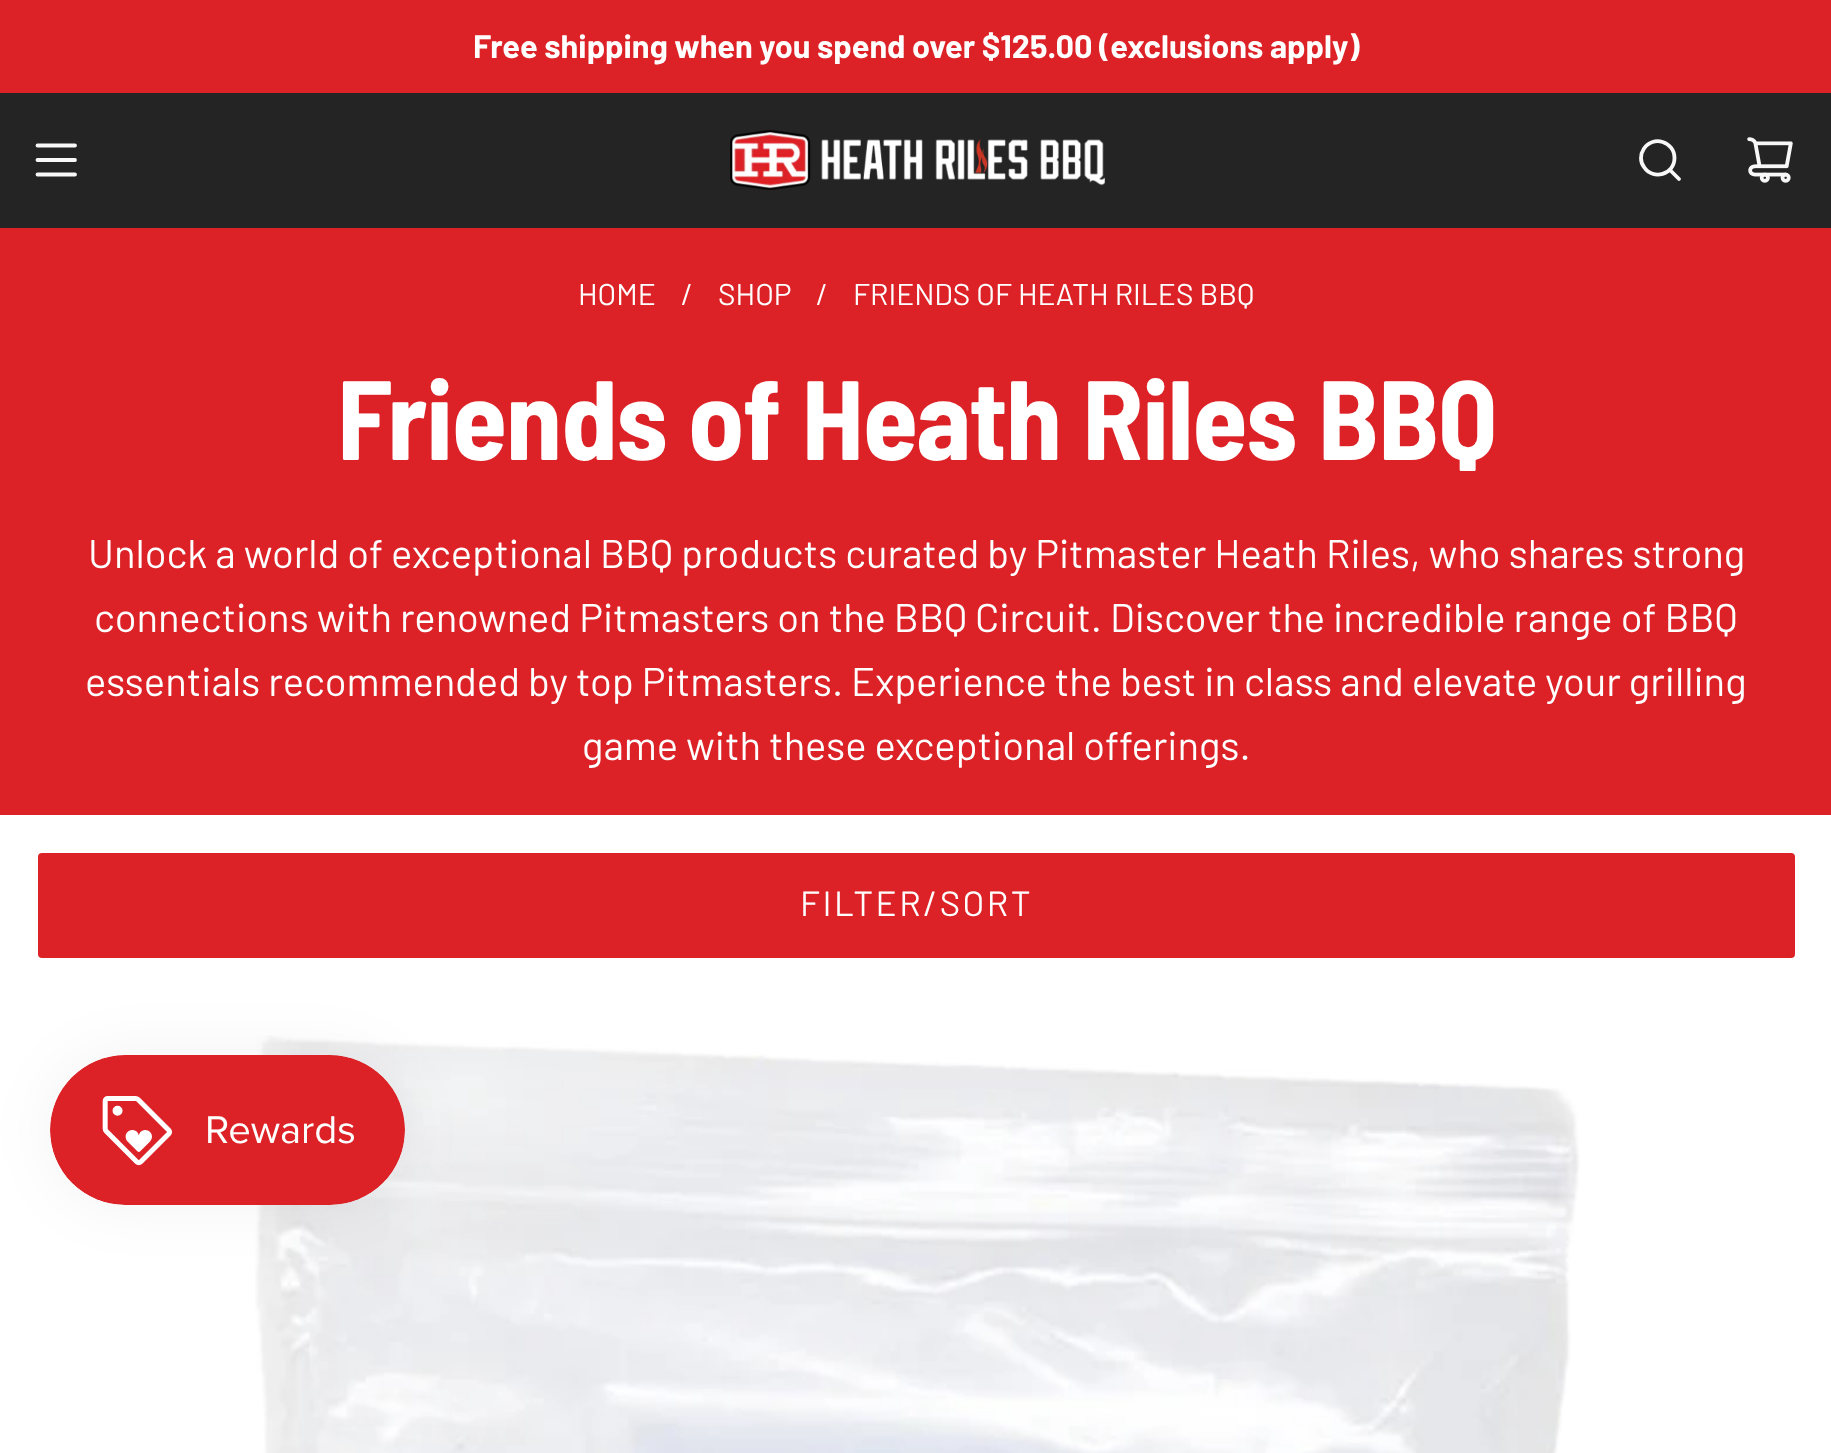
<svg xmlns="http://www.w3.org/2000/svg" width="1831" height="1453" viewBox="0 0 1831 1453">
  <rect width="100%" height="100%" fill="#fff"/>
  <path d="M0 0h1831v93H0z" fill="#dd2227"/>
  <path d="M0 93h1831v135H0z" fill="#242424"/>
  <path d="M37.5 145.5H75M37.5 160H75M37.5 174.5H75" fill="none" stroke="#f8f8f8" stroke-width="3.8" stroke-linecap="round" stroke-linejoin="round"/>
  <image x="730" y="130" width="375" height="60" href="img/1.png"/>
  <path d="M1670.5 170.5L1679 179M1641 158C1641 161 1642 164.5 1644 167C1653 181 1674.5 174.5 1674.5 158C1674.5 141.5 1653 135 1644 148.5C1642 151.5 1641 154.5 1641 158Z" fill="none" stroke="#f8f8f8" stroke-width="3.8" stroke-linecap="round" stroke-linejoin="round"/>
  <image x="1747" y="137" width="46" height="46" href="img/2.png"/>
  <path d="M0 228h1831v587H0z" fill="#dd2227"/>
  <rect x="38" y="853" width="1757" height="105" rx="4" fill="#dd2227"/>
  <image x="255" y="1035" width="1325" height="418" href="img/3.png"/>
  <rect x="50" y="1055" width="355" height="150" rx="75" fill="#0000000d" filter="blur(31px)"/>
  <image x="50" y="1055" width="355" height="150" href="img/4.png"/>
  <text x="473" y="58" font-family="Barlow" font-size="32.5" font-weight="bold" fill="#fff">Free shipping when you spend over $125.00 (exclusions apply)</text>
  <g font-family="Barlow" font-size="30" fill="#fff">
    <text x="578" y="305">HOME</text>
    <text x="681" y="305">/</text>
    <text x="718" y="305">SHOP</text>
    <text x="816" y="305">/</text>
    <text x="853" y="305">FRIENDS OF HEATH RILES BBQ</text>
  </g>
  <text x="337" y="460" font-family="Barlow Semi Condensed" font-size="112.5" font-weight="bold" letter-spacing="-1.1" fill="#fff">Friends of Heath Riles BBQ</text>
  <g font-family="Barlow" font-size="40" fill="#fff">
    <text x="88" y="568">Unlock a world of exceptional BBQ products curated by Pitmaster Heath Riles, who shares strong</text>
    <text x="94" y="632">connections with renowned Pitmasters on the BBQ Circuit. Discover the incredible range of BBQ</text>
    <text x="85" y="696">essentials recommended by top Pitmasters. Experience the best in class and elevate your grilling</text>
    <text x="582" y="760">game with these exceptional offerings.</text>
  </g>
  <text x="800" y="916" font-family="Barlow" font-size="35" letter-spacing="2.5" fill="#fff">FILTER/SORT</text>
</svg>
